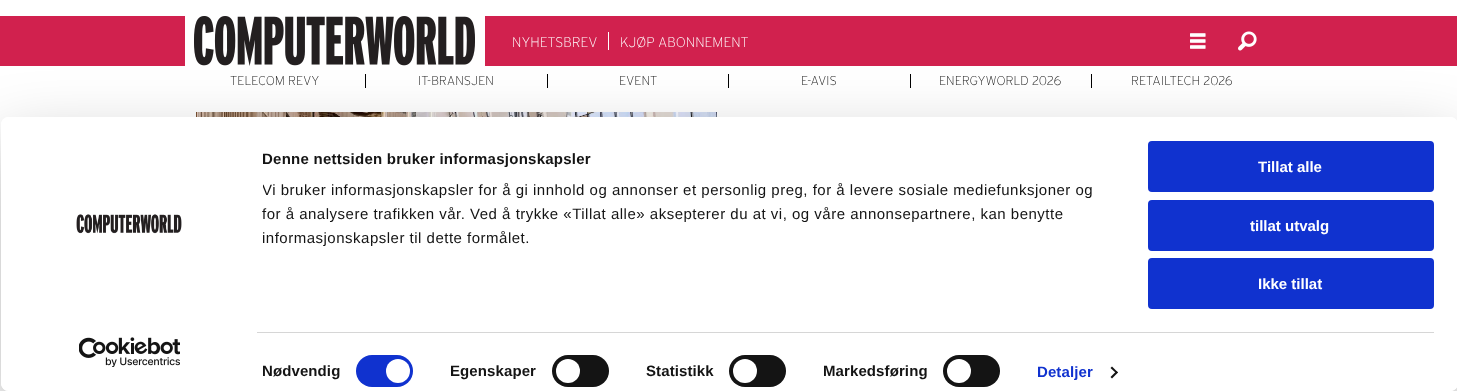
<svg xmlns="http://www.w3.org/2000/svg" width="1457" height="391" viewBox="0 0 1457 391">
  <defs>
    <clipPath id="clip1"><path d="M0 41H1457V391H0ZM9 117H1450C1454.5 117 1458 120.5 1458 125V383C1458 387.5 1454.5 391 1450 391H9C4.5 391 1 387.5 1 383V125C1 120.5 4.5 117 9 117Z" clip-rule="evenodd"/></clipPath>
    <clipPath id="clip2"><path d="M263 147h856v156H263z"/></clipPath>
  </defs>
  <rect width="100%" height="100%" fill="#fff"/>
  <path d="M0 16h1457v50H0z" fill="#d1214e"/>
  <path d="M185 16h300v50H185z" fill="#fff"/>
  <image x="194" y="16" width="281" height="50" href="img/1.png"/>
  <path d="M608 32h1v18H608z" fill="#fff"/>
  <image x="1190" y="33" width="16" height="16" href="img/2.png"/>
  <image x="1238" y="31" width="19" height="20" href="img/3.png"/>
  <path d="M365 74h1v14H365z" fill="#000"/>
  <path d="M547 74h1v14H547z" fill="#000"/>
  <path d="M728 74h1v14H728z" fill="#000"/>
  <path d="M910 74h1v14H910z" fill="#000"/>
  <path d="M1091 74h1v14H1091z" fill="#000"/>
  <image x="196" y="112" width="521" height="5" href="img/4.png"/>
  <g clip-path="url(#clip1)">
    <rect x="1" y="147" width="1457" height="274" rx="8" fill="#0000004d" filter="blur(35px)"/>
  </g>
  <rect x="1" y="117" width="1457" height="274" rx="8" fill="#fff"/>
  <image x="76" y="214" width="106" height="20" href="img/5.png"/>
  <image x="79" y="337" width="101" height="30" href="img/6.png"/>
  <path d="M257 332h1177v1H257z" fill="#d6d6d6"/>
  <rect x="356" y="355" width="57" height="32" rx="16" fill="#1032cf"/>
  <circle cx="398" cy="371" r="12" fill="#fff"/>
  <rect x="552" y="355" width="57" height="32" rx="16" fill="#141414"/>
  <circle cx="568" cy="371" r="12" fill="#fff"/>
  <rect x="729" y="355" width="57" height="32" rx="16" fill="#141414"/>
  <circle cx="745" cy="371" r="12" fill="#fff"/>
  <rect x="943" y="355" width="57" height="32" rx="16" fill="#141414"/>
  <circle cx="959" cy="371" r="12" fill="#fff"/>
  <path d="M1112 366.5L1118 372.5L1116.5 373.5L1110.5 368Z" fill="#141414"/>
  <path d="M1116.5 371L1118 372.5L1112 378.5L1110.5 377Z" fill="#141414"/>
  <rect x="1149" y="142" width="284" height="49" rx="3" fill="#1032cf" stroke="#1032cf" stroke-width="2"/>
  <rect x="1149" y="201" width="284" height="49" rx="3" fill="#1032cf" stroke="#1032cf" stroke-width="2"/>
  <rect x="1149" y="259" width="284" height="49" rx="3" fill="#1032cf" stroke="#1032cf" stroke-width="2"/>
  <g font-family="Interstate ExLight" font-size="14" font-weight="200" fill="#fff">
    <text x="512" y="47">NYHETSBREV</text>
    <text x="620" y="47">KJØP ABONNEMENT</text>
  </g>
  <g font-family="Interstate ExLight" font-size="12.75" font-weight="200" fill="#222">
    <text x="230" y="85">TELECOM REVY</text>
    <text x="418" y="85">IT-BRANSJEN</text>
    <text x="619" y="85">EVENT</text>
    <text x="801" y="85">E-AVIS</text>
    <text x="939" y="85">ENERGYWORLD 2026</text>
    <text x="1131" y="85">RETAILTECH 2026</text>
  </g>
  <text x="262" y="164" font-family="Liberation Sans" font-size="15" font-weight="bold" letter-spacing="0.25" fill="#141414">Denne nettsiden bruker informasjonskapsler</text>
  <g clip-path="url(#clip2)">
    <text x="262" y="195" font-family="Liberation Sans" font-size="15" letter-spacing="0.5" fill="#141414">Vi bruker informasjonskapsler for å gi innhold og annonser et personlig preg, for å levere sosiale mediefunksjoner og</text>
  </g>
  <g font-family="Liberation Sans" font-size="15" letter-spacing="0.5" fill="#141414">
    <text x="262" y="219">for å analysere trafikken vår. Ved å trykke «Tillat alle» aksepterer du at vi, og våre annonsepartnere, kan benytte</text>
    <text x="262" y="243">informasjonskapsler til dette formålet.</text>
  </g>
  <g font-family="Liberation Sans" font-size="15" font-weight="bold" letter-spacing="0.1" fill="#141414">
    <text x="262" y="376">Nødvendig</text>
    <text x="450" y="376">Egenskaper</text>
    <text x="646" y="376">Statistikk</text>
    <text x="823" y="376">Markedsføring</text>
  </g>
  <text x="1037" y="377" font-family="Liberation Sans" font-size="15" font-weight="bold" letter-spacing="0.1" fill="#1032cf">Detaljer</text>
  <g font-family="Liberation Sans" font-size="15" font-weight="bold" fill="#fff">
    <text x="1258" y="172">Tillat alle</text>
    <text x="1250" y="231">tillat utvalg</text>
    <text x="1258" y="289">Ikke tillat</text>
  </g>
</svg>
